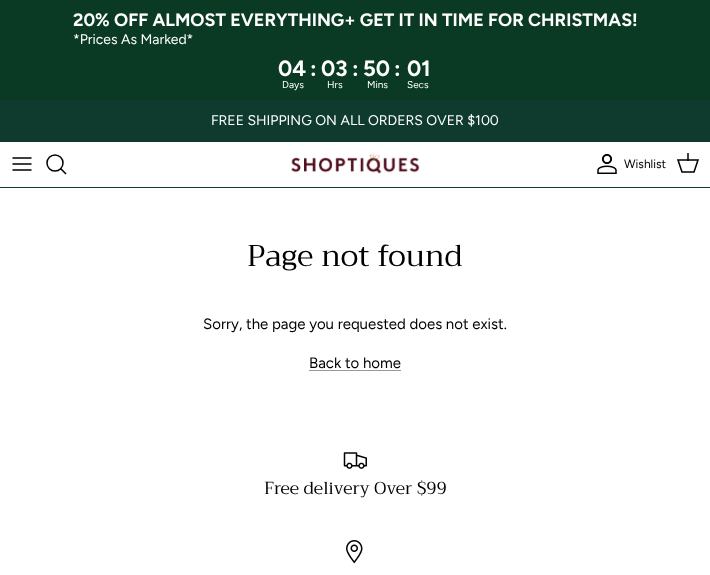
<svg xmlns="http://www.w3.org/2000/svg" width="710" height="575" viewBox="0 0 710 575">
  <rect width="100%" height="100%" fill="#fff"/>
  <path d="M0 0h710v100H0z" fill="#0a3a24"/>
  <path d="M0 100h710v42H0z" fill="#0f3b2e"/>
  <path d="M0 187h710v1H0z" fill="#0f3b2e"/>
  <path d="M13 164H31M13 158H31M13 170H31" fill="none" stroke="#000" stroke-width="1.5" stroke-linecap="round" stroke-linejoin="round"/>
  <circle cx="55" cy="163" r="8" fill="none" stroke="#000" stroke-width="1.5"/>
  <path d="M61 169L65.5 173.5" fill="none" stroke="#000" stroke-width="1.5" stroke-linecap="square"/>
  <image x="291" y="152" width="129" height="22" href="img/1.png"/>
  <image x="597" y="154" width="20" height="20" href="img/2.png"/>
  <path d="M678 160H698L694 172H682Z" fill="none" stroke="#000" stroke-width="1.5"/>
  <path d="M687 153h2v8H687z" fill="#000000bf"/>
  <path d="M309 370h92v1H309z" fill="#999"/>
  <image x="343" y="452" width="24" height="17" href="img/3.png"/>
  <image x="346" y="540" width="17" height="24" href="img/4.png"/>
  <text x="73" y="26" font-family="Figtree" font-size="18" font-weight="bold" fill="#fff">20% OFF ALMOST EVERYTHING+ GET IT IN TIME FOR CHRISTMAS!</text>
  <text x="73" y="44" font-family="Figtree" font-size="14" fill="#fff">*Prices As Marked*</text>
  <g font-family="Figtree" font-size="22" font-weight="bold" fill="#fff">
    <text x="278" y="76">04</text>
    <text x="310" y="76">:</text>
    <text x="321" y="76">03</text>
    <text x="352" y="76">:</text>
    <text x="363" y="76">50</text>
    <text x="394" y="76">:</text>
    <text x="407" y="76">01</text>
  </g>
  <g font-family="Figtree" font-size="10" fill="#fff">
    <text x="282" y="88">Days</text>
    <text x="327" y="88">Hrs</text>
    <text x="367" y="88">Mins</text>
    <text x="407" y="88">Secs</text>
  </g>
  <text x="211" y="125" font-family="Figtree" font-size="14" fill="#fff">FREE SHIPPING ON ALL ORDERS OVER $100</text>
  <text x="624" y="168" font-family="Figtree" font-size="12" fill="#000">Wishlist</text>
  <text x="247" y="266" font-family="Trirong" font-size="30" fill="#000">Page not found</text>
  <g font-family="Figtree" font-size="15" fill="#000">
    <text x="203" y="329">Sorry, the page you requested does not exist.</text>
    <text x="309" y="368">Back to home</text>
  </g>
  <text x="264" y="494" font-family="Trirong" font-size="17.4" fill="#000">Free delivery Over $99</text>
</svg>
